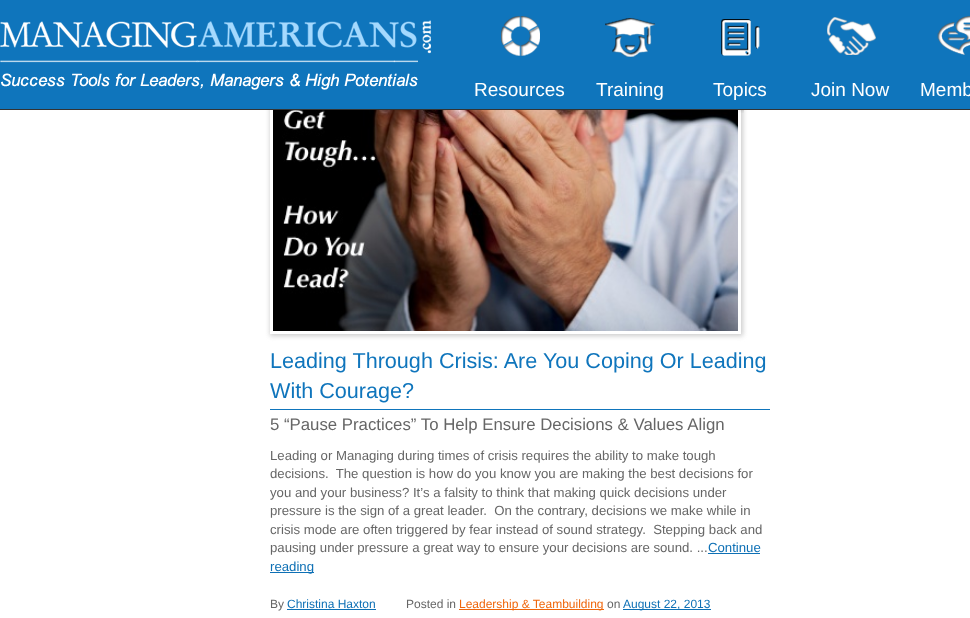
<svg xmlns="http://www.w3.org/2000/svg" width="970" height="618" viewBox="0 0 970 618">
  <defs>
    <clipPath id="clip1"><path d="M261 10H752V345H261ZM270 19H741V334H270Z" clip-rule="evenodd"/></clipPath>
  </defs>
  <rect width="100%" height="100%" fill="#fff"/>
  <g clip-path="url(#clip1)">
    <path d="M270 19h473v317H270z" fill="#ccc" filter="blur(2.5px)"/>
  </g>
  <path d="M0 0h970v109H0z" fill="#0f75bc"/>
  <path d="M0 109h970v1H0z" fill="#333"/>
  <image x="0" y="20" width="431" height="70" href="img/1.png"/>
  <image x="501" y="16" width="39" height="40" href="img/2.png"/>
  <image x="605" y="18" width="50" height="39" href="img/3.png"/>
  <image x="721" y="19" width="39" height="37" href="img/4.png"/>
  <image x="827" y="17" width="49" height="38" href="img/5.png"/>
  <image x="937" y="16" width="33" height="39" href="img/6.png"/>
  <image x="273" y="110" width="465" height="221" href="img/7.png"/>
  <image x="738" y="110" width="6" height="3" href="img/8.png"/>
  <path d="M270 409h500v1H270z" fill="#0f75bc"/>
  <path d="M708 553h52v1H708z" fill="#0e70b5"/>
  <path d="M270 572h44v1H270z" fill="#0e70b5"/>
  <path d="M287 609h89v1H287z" fill="#0e70b5"/>
  <path d="M459 609h145v1H459z" fill="#ef660b"/>
  <path d="M623 609h88v1H623z" fill="#0e70b5"/>
  <g font-family="Liberation Sans" font-size="19" fill="#fff">
    <text x="474" y="96">Resources</text>
    <text x="596" y="96">Training</text>
    <text x="713" y="96">Topics</text>
    <text x="811" y="96">Join Now</text>
    <text x="920" y="96">Memb</text>
  </g>
  <g font-family="Liberation Sans" font-size="21.6" fill="#0f75bc">
    <text x="270" y="368">Leading Through Crisis: Are You Coping Or Leading</text>
    <text x="270" y="398">With Courage?</text>
  </g>
  <text x="270" y="430" font-family="Liberation Sans" font-size="16.8" fill="#666">5 “Pause Practices” To Help Ensure Decisions &amp; Values Align</text>
  <g font-family="Liberation Sans" font-size="13.2" fill="#666">
    <text x="270" y="460">Leading or Managing during times of crisis requires the ability to make tough</text>
    <text x="270" y="478" xml:space="preserve">decisions.  The question is how do you know you are making the best decisions for</text>
    <text x="270" y="497">you and your business? It’s a falsity to think that making quick decisions under</text>
    <text x="270" y="515" xml:space="preserve">pressure is the sign of a great leader.  On the contrary, decisions we make while in</text>
    <text x="270" y="534" xml:space="preserve">crisis mode are often triggered by fear instead of sound strategy.  Stepping back and</text>
    <text x="270" y="552">pausing under pressure a great way to ensure your decisions are sound. ...</text>
  </g>
  <g font-family="Liberation Sans" font-size="13.2" fill="#0e70b5">
    <text x="708" y="552">Continue</text>
    <text x="270" y="571">reading</text>
  </g>
  <text x="270" y="608" font-family="Liberation Sans" font-size="12" fill="#666">By</text>
  <text x="287" y="608" font-family="Liberation Sans" font-size="12" fill="#0e70b5">Christina Haxton</text>
  <text x="406" y="608" font-family="Liberation Sans" font-size="12" fill="#666">Posted in</text>
  <text x="459" y="608" font-family="Liberation Sans" font-size="12" fill="#ef660b">Leadership &amp; Teambuilding</text>
  <text x="607" y="608" font-family="Liberation Sans" font-size="12" fill="#666">on</text>
  <text x="623" y="608" font-family="Liberation Sans" font-size="12" fill="#0e70b5">August 22, 2013</text>
</svg>
